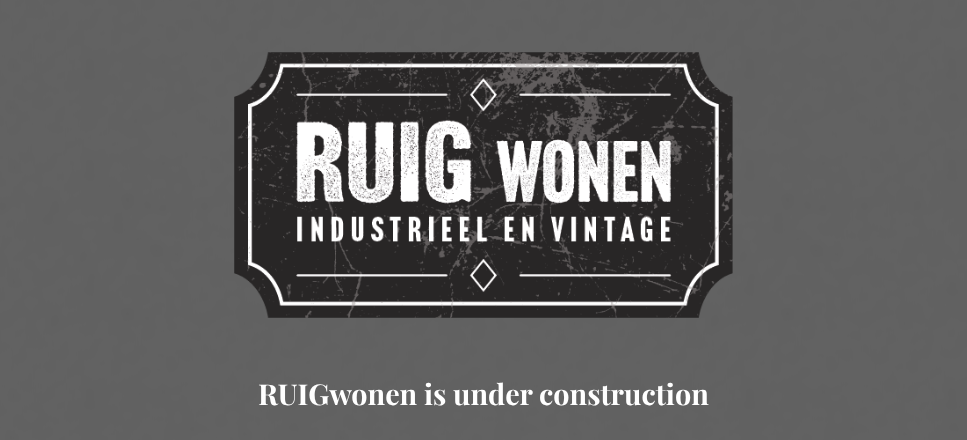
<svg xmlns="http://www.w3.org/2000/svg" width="967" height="440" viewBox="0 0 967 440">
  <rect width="100%" height="100%" fill="#fff"/>
  <image x="0" y="0" width="967" height="440" href="img/1.png"/>
  <image x="234" y="52" width="499" height="266" href="img/2.png"/>
  <text x="258" y="405" font-family="Playfair Display" font-size="28.75" font-weight="bold" fill="#fff">RUIGwonen is under construction</text>
</svg>
